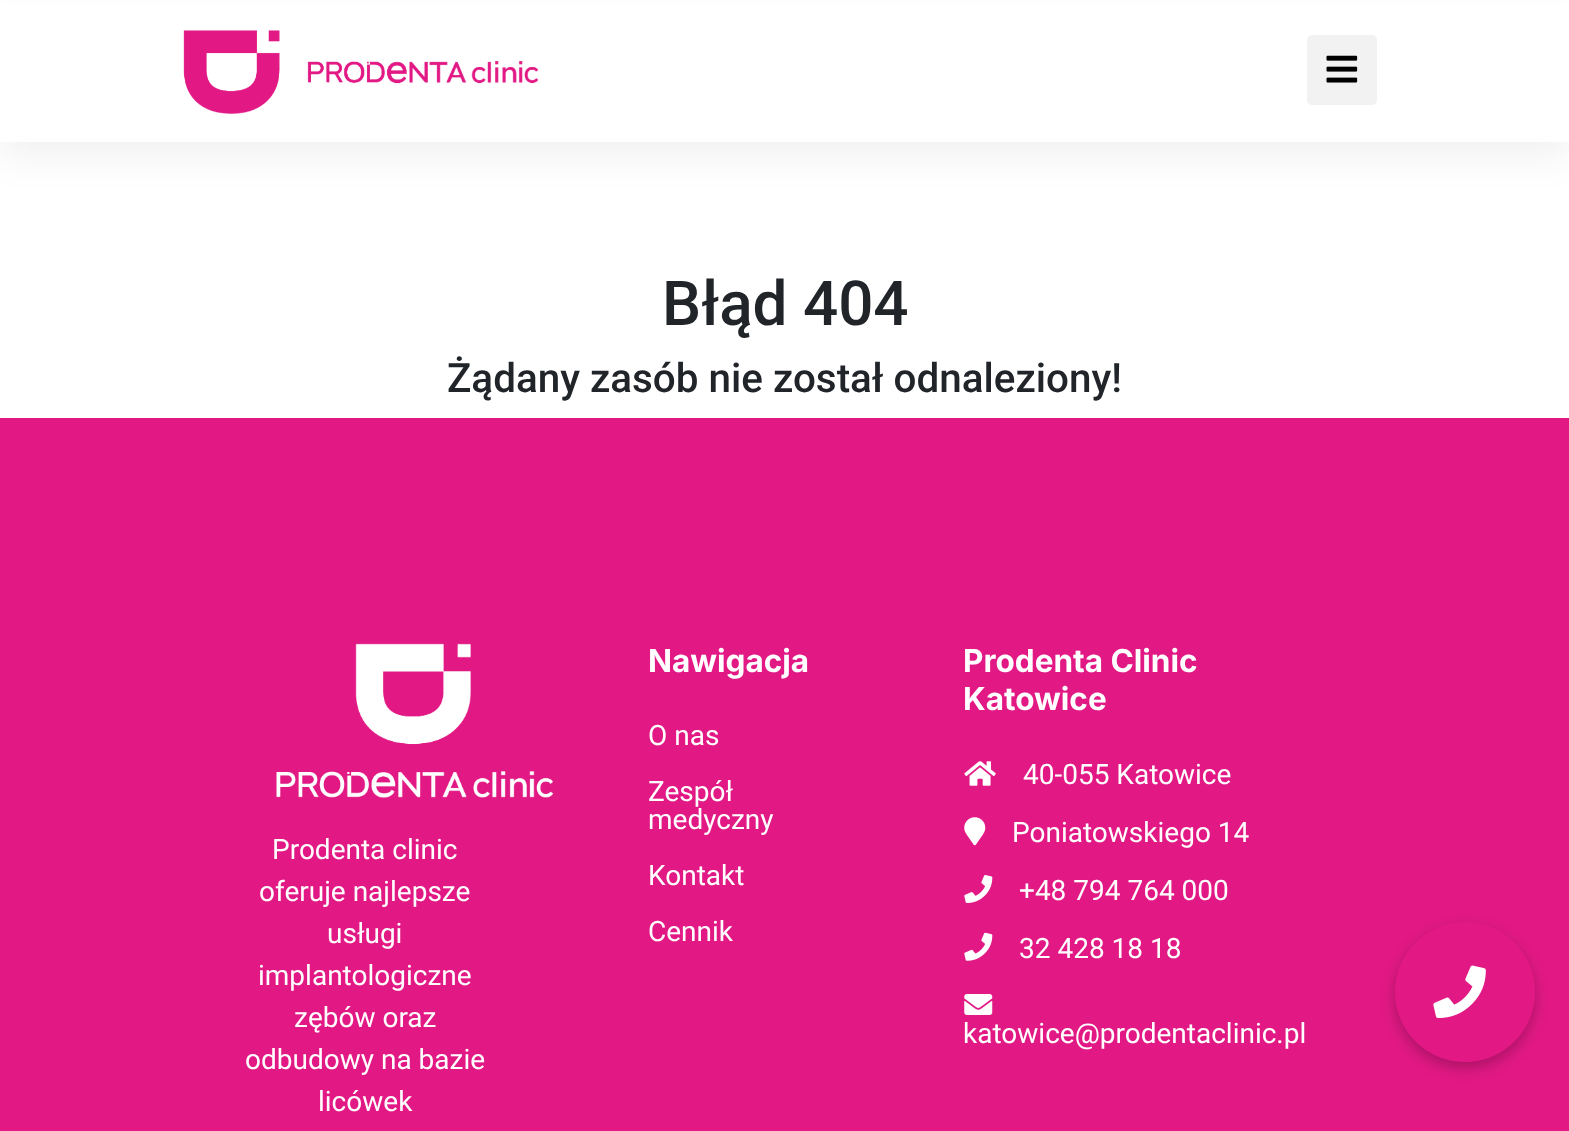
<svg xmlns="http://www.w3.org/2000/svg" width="1569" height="1131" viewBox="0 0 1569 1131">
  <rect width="100%" height="100%" fill="#fff"/>
  <path d="M0 18h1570v141H0z" fill="#0000000d" filter="blur(17.5px)"/>
  <path d="M0 3h1569v139H0z" fill="#fff"/>
  <image x="183" y="30" width="356" height="84" href="img/1.png"/>
  <rect x="1307" y="35" width="70" height="70" rx="5" fill="#f2f2f2"/>
  <image x="1326" y="55" width="32" height="28" href="img/2.png"/>
  <path d="M0 418h1569v713H0z" fill="#e21985"/>
  <image x="276" y="643" width="278" height="155" href="img/3.png"/>
  <image x="964" y="761" width="32" height="25" href="img/4.png"/>
  <image x="964" y="817" width="22" height="29" href="img/5.png"/>
  <image x="964" y="875" width="29" height="28" href="img/6.png"/>
  <image x="964" y="932" width="29" height="29" href="img/7.png"/>
  <image x="964" y="994" width="29" height="21" href="img/8.png"/>
  <rect x="1395" y="928" width="140" height="140" rx="70" fill="#0000003d" filter="blur(7px)"/>
  <circle cx="1465" cy="992" r="70" fill="#e21985"/>
  <image x="1433" y="965" width="53" height="54" href="img/9.png"/>
  <text x="662" y="325" font-family="Roboto" font-size="62" font-weight="500" fill="#212529">Błąd 404</text>
  <text x="447" y="392" font-family="Roboto" font-size="40.4" font-weight="500" fill="#212529">Żądany zasób nie został odnaleziony!</text>
  <g font-family="Roboto" font-size="28" fill="#fff">
    <text x="272" y="859">Prodenta clinic</text>
    <text x="259" y="901">oferuje najlepsze</text>
    <text x="327" y="943">usługi</text>
    <text x="258" y="985">implantologiczne</text>
    <text x="294" y="1027">zębów oraz</text>
    <text x="245" y="1069">odbudowy na bazie</text>
    <text x="318" y="1111">licówek</text>
  </g>
  <text x="648" y="672" font-family="Inter" font-size="31.5" font-weight="bold" fill="#fff">Nawigacja</text>
  <g font-family="Roboto" font-size="28" fill="#fff">
    <text x="648" y="745">O nas</text>
    <text x="648" y="801">Zespół</text>
    <text x="648" y="829">medyczny</text>
    <text x="648" y="885">Kontakt</text>
    <text x="648" y="941">Cennik</text>
  </g>
  <g font-family="Inter" font-size="31.5" font-weight="bold" fill="#fff">
    <text x="963" y="672">Prodenta Clinic</text>
    <text x="963" y="710">Katowice</text>
  </g>
  <g font-family="Roboto" font-size="28" fill="#fff">
    <text x="1023" y="784">40-055 Katowice</text>
    <text x="1012" y="842">Poniatowskiego 14</text>
    <text x="1019" y="900">+48 794 764 000</text>
    <text x="1019" y="958">32 428 18 18</text>
    <text x="963" y="1043">katowice@prodentaclinic.pl</text>
  </g>
</svg>
